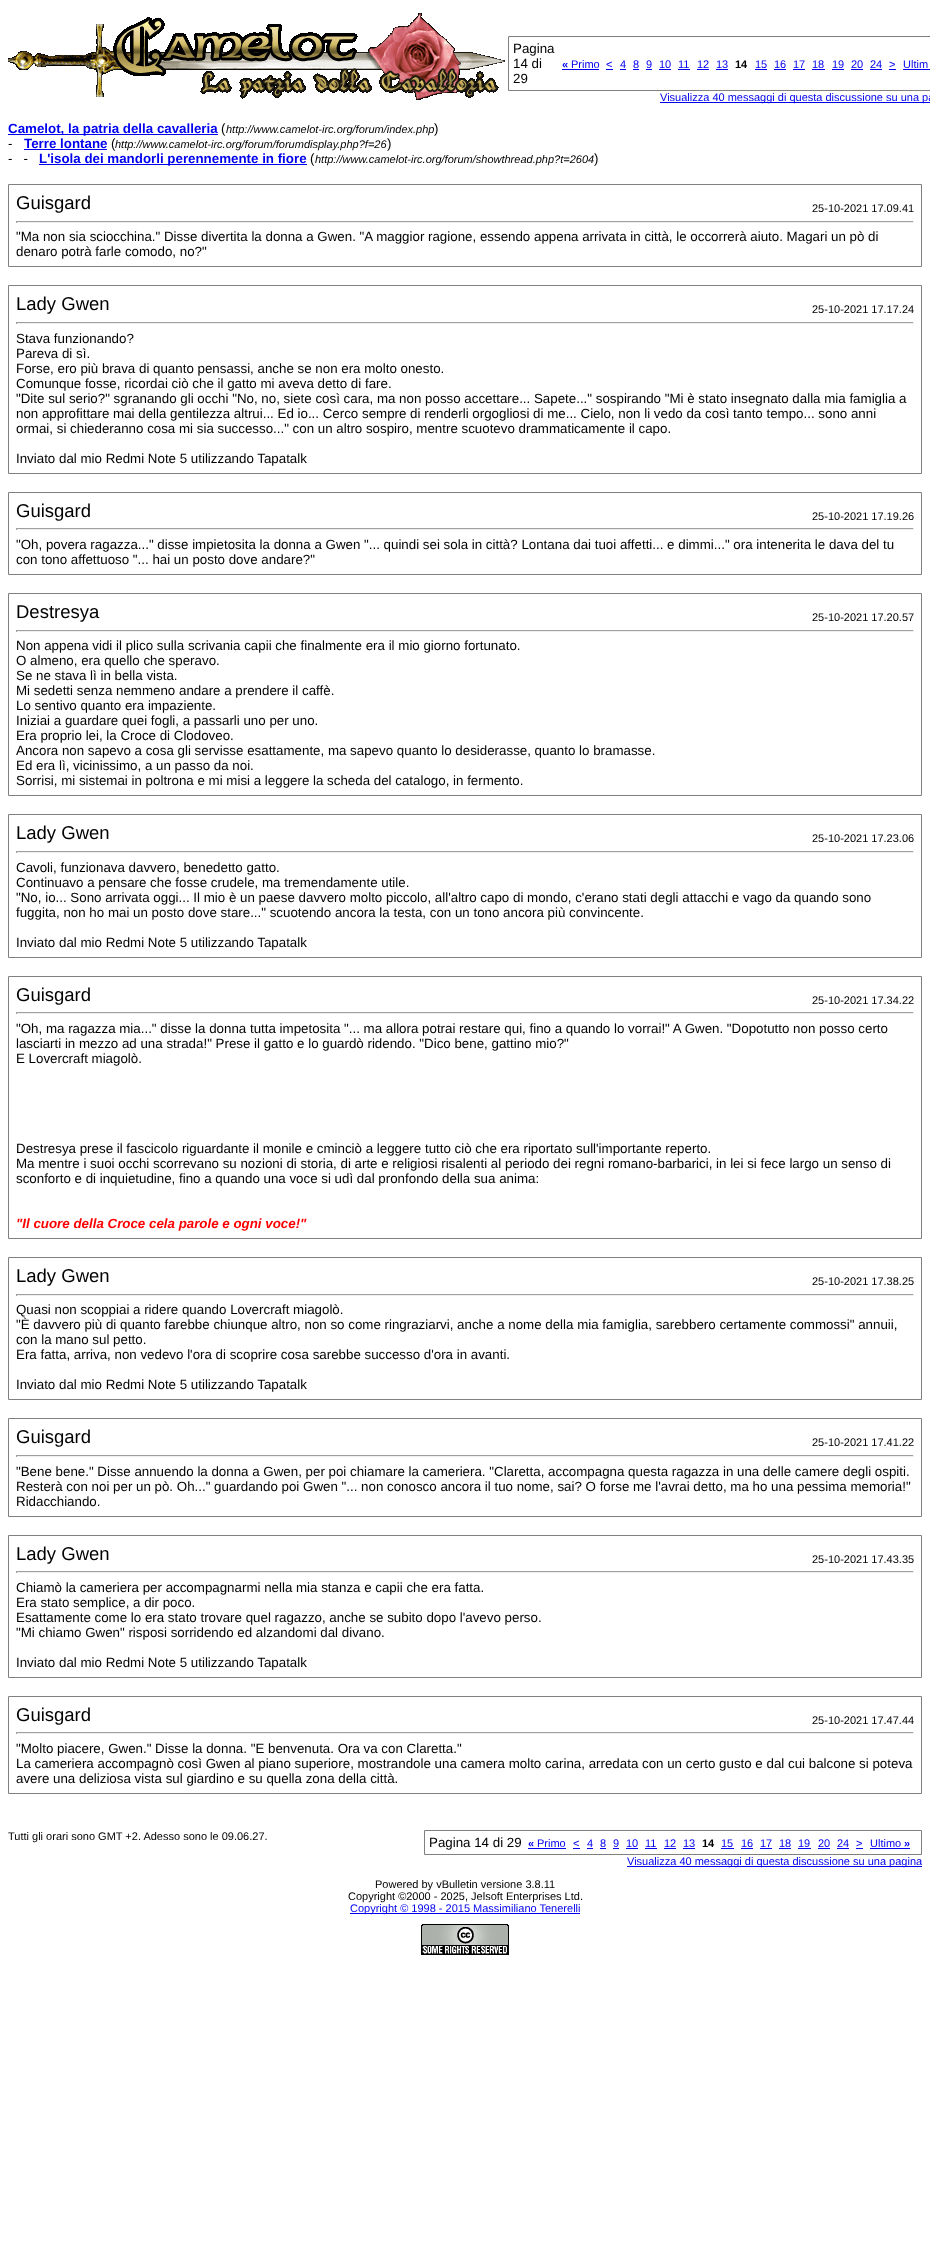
<svg xmlns="http://www.w3.org/2000/svg" width="930" height="2241" viewBox="0 0 930 2241">
  <rect width="100%" height="100%" fill="#fff"/>
  <image x="8" y="13" width="497" height="87" href="img/1.png"/>
  <path d="M508.5 36.5h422v54H508.5z" fill="none" stroke="#808080"/>
  <path d="M562 69h37v1H562z" fill="#00e"/>
  <path d="M606 69h7v1H606z" fill="#00e"/>
  <path d="M620 69h6v1H620z" fill="#00e"/>
  <path d="M633 69h6v1H633z" fill="#00e"/>
  <path d="M646 69h6v1H646z" fill="#00e"/>
  <path d="M659 69h12v1H659z" fill="#00e"/>
  <path d="M678 69h12v1H678z" fill="#00e"/>
  <path d="M697 69h12v1H697z" fill="#00e"/>
  <path d="M716 69h12v1H716z" fill="#00e"/>
  <path d="M755 69h12v1H755z" fill="#00e"/>
  <path d="M774 69h12v1H774z" fill="#00e"/>
  <path d="M793 69h12v1H793z" fill="#00e"/>
  <path d="M812 69h13v1H812z" fill="#00e"/>
  <path d="M832 69h12v1H832z" fill="#00e"/>
  <path d="M851 69h12v1H851z" fill="#00e"/>
  <path d="M870 69h12v1H870z" fill="#00e"/>
  <path d="M889 69h7v1H889z" fill="#00e"/>
  <path d="M903 69h27v1H903z" fill="#00e"/>
  <path d="M660 102h270v1H660z" fill="#00e"/>
  <path d="M8 134h210v1H8z" fill="#00e"/>
  <path d="M24 149h83v1H24z" fill="#00e"/>
  <path d="M39 164h268v1H39z" fill="#00e"/>
  <path d="M8.5 184.5h913v82H8.5z" fill="none" stroke="#808080"/>
  <path d="M16 221h898v1H16z" fill="#9f9f9f"/>
  <path d="M913 221h1v2H913z" fill="#eee"/>
  <path d="M16 222h898v1H16z" fill="#eee"/>
  <path d="M16 221h1v2H16z" fill="#9f9f9f"/>
  <path d="M8.5 285.5h913v188H8.5z" fill="none" stroke="#808080"/>
  <path d="M16 322h898v1H16z" fill="#9f9f9f"/>
  <path d="M913 322h1v2H913z" fill="#eee"/>
  <path d="M16 323h898v1H16z" fill="#eee"/>
  <path d="M16 322h1v2H16z" fill="#9f9f9f"/>
  <path d="M8.5 492.5h913v82H8.5z" fill="none" stroke="#808080"/>
  <path d="M16 528h898v1H16z" fill="#9f9f9f"/>
  <path d="M913 528h1v2H913z" fill="#eee"/>
  <path d="M16 529h898v1H16z" fill="#eee"/>
  <path d="M16 528h1v2H16z" fill="#9f9f9f"/>
  <path d="M8.5 593.5h913v202H8.5z" fill="none" stroke="#808080"/>
  <path d="M16 630h898v1H16z" fill="#9f9f9f"/>
  <path d="M913 630h1v2H913z" fill="#eee"/>
  <path d="M16 631h898v1H16z" fill="#eee"/>
  <path d="M16 630h1v2H16z" fill="#9f9f9f"/>
  <path d="M8.5 814.5h913v143H8.5z" fill="none" stroke="#808080"/>
  <path d="M16 851h898v1H16z" fill="#9f9f9f"/>
  <path d="M913 851h1v2H913z" fill="#eee"/>
  <path d="M16 852h898v1H16z" fill="#eee"/>
  <path d="M16 851h1v2H16z" fill="#9f9f9f"/>
  <path d="M8.5 976.5h913v262H8.5z" fill="none" stroke="#808080"/>
  <path d="M16 1012h898v1H16z" fill="#9f9f9f"/>
  <path d="M913 1012h1v2H913z" fill="#eee"/>
  <path d="M16 1013h898v1H16z" fill="#eee"/>
  <path d="M16 1012h1v2H16z" fill="#9f9f9f"/>
  <path d="M8.5 1257.5h913v142H8.5z" fill="none" stroke="#808080"/>
  <path d="M16 1294h898v1H16z" fill="#9f9f9f"/>
  <path d="M913 1294h1v2H913z" fill="#eee"/>
  <path d="M16 1295h898v1H16z" fill="#eee"/>
  <path d="M16 1294h1v2H16z" fill="#9f9f9f"/>
  <path d="M8.5 1418.5h913v98H8.5z" fill="none" stroke="#808080"/>
  <path d="M16 1455h898v1H16z" fill="#9f9f9f"/>
  <path d="M913 1455h1v2H913z" fill="#eee"/>
  <path d="M16 1456h898v1H16z" fill="#eee"/>
  <path d="M16 1455h1v2H16z" fill="#9f9f9f"/>
  <path d="M8.5 1535.5h913v142H8.5z" fill="none" stroke="#808080"/>
  <path d="M16 1571h898v1H16z" fill="#9f9f9f"/>
  <path d="M913 1571h1v2H913z" fill="#eee"/>
  <path d="M16 1572h898v1H16z" fill="#eee"/>
  <path d="M16 1571h1v2H16z" fill="#9f9f9f"/>
  <path d="M8.5 1696.5h913v97H8.5z" fill="none" stroke="#808080"/>
  <path d="M16 1732h898v1H16z" fill="#9f9f9f"/>
  <path d="M913 1732h1v2H913z" fill="#eee"/>
  <path d="M16 1733h898v1H16z" fill="#eee"/>
  <path d="M16 1732h1v2H16z" fill="#9f9f9f"/>
  <path d="M424.5 1830.5h497v24H424.5z" fill="none" stroke="#808080"/>
  <path d="M528 1848h38v1H528z" fill="#00e"/>
  <path d="M573 1848h7v1H573z" fill="#00e"/>
  <path d="M587 1848h6v1H587z" fill="#00e"/>
  <path d="M600 1848h6v1H600z" fill="#00e"/>
  <path d="M613 1848h6v1H613z" fill="#00e"/>
  <path d="M626 1848h12v1H626z" fill="#00e"/>
  <path d="M645 1848h12v1H645z" fill="#00e"/>
  <path d="M664 1848h12v1H664z" fill="#00e"/>
  <path d="M683 1848h12v1H683z" fill="#00e"/>
  <path d="M721 1848h13v1H721z" fill="#00e"/>
  <path d="M741 1848h12v1H741z" fill="#00e"/>
  <path d="M760 1848h12v1H760z" fill="#00e"/>
  <path d="M779 1848h12v1H779z" fill="#00e"/>
  <path d="M798 1848h13v1H798z" fill="#00e"/>
  <path d="M818 1848h12v1H818z" fill="#00e"/>
  <path d="M837 1848h12v1H837z" fill="#00e"/>
  <path d="M856 1848h7v1H856z" fill="#00e"/>
  <path d="M870 1848h40v1H870z" fill="#00e"/>
  <path d="M627 1866h295v1H627z" fill="#00e"/>
  <path d="M350 1913h230v1H350z" fill="#00e"/>
  <image x="421" y="1924" width="88" height="31" href="img/2.png"/>
  <g font-family="Liberation Sans" font-size="13.33" fill="#000">
    <text x="513" y="53">Pagina</text>
    <text x="513" y="68">14 di</text>
    <text x="513" y="83">29</text>
  </g>
  <text x="562" y="68" font-family="Liberation Sans" font-size="11" font-weight="bold" fill="#00e">«</text>
  <g font-family="Liberation Sans" font-size="11" fill="#00e">
    <text x="571" y="68">Primo</text>
    <text x="606" y="68">&lt;</text>
    <text x="620" y="68">4</text>
    <text x="633" y="68">8</text>
    <text x="646" y="68">9</text>
    <text x="659" y="68">10</text>
    <text x="678" y="68">11</text>
    <text x="697" y="68">12</text>
    <text x="716" y="68">13</text>
  </g>
  <text x="735" y="68" font-family="Liberation Sans" font-size="11" font-weight="bold" fill="#000">14</text>
  <g font-family="Liberation Sans" font-size="11" fill="#00e">
    <text x="755" y="68">15</text>
    <text x="774" y="68">16</text>
    <text x="793" y="68">17</text>
    <text x="812" y="68">18</text>
    <text x="832" y="68">19</text>
    <text x="851" y="68">20</text>
    <text x="870" y="68">24</text>
    <text x="889" y="68">&gt;</text>
    <text x="903" y="68">Ultim</text>
    <text x="660" y="101">Visualizza 40 messaggi di questa discussione su una pa</text>
  </g>
  <text x="8" y="133" font-family="Liberation Sans" font-size="13.33" font-weight="bold" fill="#00e">Camelot, la patria della cavalleria</text>
  <text x="221" y="133" font-family="Liberation Sans" font-size="13.33" fill="#000">(</text>
  <text x="226" y="133" font-family="Liberation Sans" font-size="11" font-style="italic" fill="#000">http://www.camelot-irc.org/forum/index.php</text>
  <g font-family="Liberation Sans" font-size="13.33" fill="#000">
    <text x="434" y="133">)</text>
    <text x="8" y="148">-</text>
  </g>
  <text x="24" y="148" font-family="Liberation Sans" font-size="13.33" font-weight="bold" fill="#00e">Terre lontane</text>
  <text x="111" y="148" font-family="Liberation Sans" font-size="13.33" fill="#000">(</text>
  <text x="115" y="148" font-family="Liberation Sans" font-size="11" font-style="italic" fill="#000">http://www.camelot-irc.org/forum/forumdisplay.php?f=26</text>
  <g font-family="Liberation Sans" font-size="13.33" fill="#000">
    <text x="387" y="148">)</text>
    <text x="8" y="163" xml:space="preserve">-   -</text>
  </g>
  <text x="39" y="163" font-family="Liberation Sans" font-size="13.33" font-weight="bold" fill="#00e">L'isola dei mandorli perennemente in fiore</text>
  <text x="310" y="163" font-family="Liberation Sans" font-size="13.33" fill="#000">(</text>
  <text x="315" y="163" font-family="Liberation Sans" font-size="11" font-style="italic" fill="#000">http://www.camelot-irc.org/forum/showthread.php?t=2604</text>
  <text x="594" y="163" font-family="Liberation Sans" font-size="13.33" fill="#000">)</text>
  <text x="16" y="209" font-family="Liberation Sans" font-size="18.5" fill="#000">Guisgard</text>
  <text x="812" y="212" font-family="Liberation Sans" font-size="11" fill="#000">25-10-2021 17.09.41</text>
  <g font-family="Liberation Sans" font-size="13.33" fill="#000">
    <text x="16" y="241">"Ma non sia sciocchina." Disse divertita la donna a Gwen. "A maggior ragione, essendo appena arrivata in città, le occorrerà aiuto. Magari un pò di</text>
    <text x="16" y="256">denaro potrà farle comodo, no?"</text>
  </g>
  <text x="16" y="310" font-family="Liberation Sans" font-size="18.5" fill="#000">Lady Gwen</text>
  <text x="812" y="313" font-family="Liberation Sans" font-size="11" fill="#000">25-10-2021 17.17.24</text>
  <g font-family="Liberation Sans" font-size="13.33" fill="#000">
    <text x="16" y="343">Stava funzionando?</text>
    <text x="16" y="358">Pareva di sì.</text>
    <text x="16" y="373">Forse, ero più brava di quanto pensassi, anche se non era molto onesto.</text>
    <text x="16" y="388">Comunque fosse, ricordai ciò che il gatto mi aveva detto di fare.</text>
    <text x="16" y="403">"Dite sul serio?" sgranando gli occhi "No, no, siete così cara, ma non posso accettare... Sapete..." sospirando "Mi è stato insegnato dalla mia famiglia a</text>
    <text x="16" y="418">non approfittare mai della gentilezza altrui... Ed io... Cerco sempre di renderli orgogliosi di me... Cielo, non li vedo da così tanto tempo... sono anni</text>
    <text x="16" y="433">ormai, si chiederanno cosa mi sia successo..." con un altro sospiro, mentre scuotevo drammaticamente il capo.</text>
    <text x="16" y="463">Inviato dal mio Redmi Note 5 utilizzando Tapatalk</text>
  </g>
  <text x="16" y="517" font-family="Liberation Sans" font-size="18.5" fill="#000">Guisgard</text>
  <text x="812" y="520" font-family="Liberation Sans" font-size="11" fill="#000">25-10-2021 17.19.26</text>
  <g font-family="Liberation Sans" font-size="13.33" fill="#000">
    <text x="16" y="549">"Oh, povera ragazza..." disse impietosita la donna a Gwen "... quindi sei sola in città? Lontana dai tuoi affetti... e dimmi..." ora intenerita le dava del tu</text>
    <text x="16" y="564">con tono affettuoso "... hai un posto dove andare?"</text>
  </g>
  <text x="16" y="618" font-family="Liberation Sans" font-size="18.5" fill="#000">Destresya</text>
  <text x="812" y="621" font-family="Liberation Sans" font-size="11" fill="#000">25-10-2021 17.20.57</text>
  <g font-family="Liberation Sans" font-size="13.33" fill="#000">
    <text x="16" y="650">Non appena vidi il plico sulla scrivania capii che finalmente era il mio giorno fortunato.</text>
    <text x="16" y="665">O almeno, era quello che speravo.</text>
    <text x="16" y="680">Se ne stava lì in bella vista.</text>
    <text x="16" y="695">Mi sedetti senza nemmeno andare a prendere il caffè.</text>
    <text x="16" y="710">Lo sentivo quanto era impaziente.</text>
    <text x="16" y="725">Iniziai a guardare quei fogli, a passarli uno per uno.</text>
    <text x="16" y="740">Era proprio lei, la Croce di Clodoveo.</text>
    <text x="16" y="755">Ancora non sapevo a cosa gli servisse esattamente, ma sapevo quanto lo desiderasse, quanto lo bramasse.</text>
    <text x="16" y="770">Ed era lì, vicinissimo, a un passo da noi.</text>
    <text x="16" y="785">Sorrisi, mi sistemai in poltrona e mi misi a leggere la scheda del catalogo, in fermento.</text>
  </g>
  <text x="16" y="839" font-family="Liberation Sans" font-size="18.5" fill="#000">Lady Gwen</text>
  <text x="812" y="842" font-family="Liberation Sans" font-size="11" fill="#000">25-10-2021 17.23.06</text>
  <g font-family="Liberation Sans" font-size="13.33" fill="#000">
    <text x="16" y="872">Cavoli, funzionava davvero, benedetto gatto.</text>
    <text x="16" y="887">Continuavo a pensare che fosse crudele, ma tremendamente utile.</text>
    <text x="16" y="902">"No, io... Sono arrivata oggi... Il mio è un paese davvero molto piccolo, all'altro capo di mondo, c'erano stati degli attacchi e vago da quando sono</text>
    <text x="16" y="917">fuggita, non ho mai un posto dove stare..." scuotendo ancora la testa, con un tono ancora più convincente.</text>
    <text x="16" y="947">Inviato dal mio Redmi Note 5 utilizzando Tapatalk</text>
  </g>
  <text x="16" y="1001" font-family="Liberation Sans" font-size="18.5" fill="#000">Guisgard</text>
  <text x="812" y="1004" font-family="Liberation Sans" font-size="11" fill="#000">25-10-2021 17.34.22</text>
  <g font-family="Liberation Sans" font-size="13.33" fill="#000">
    <text x="16" y="1033">"Oh, ma ragazza mia..." disse la donna tutta impetosita "... ma allora potrai restare qui, fino a quando lo vorrai!" A Gwen. "Dopotutto non posso certo</text>
    <text x="16" y="1048">lasciarti in mezzo ad una strada!" Prese il gatto e lo guardò ridendo. "Dico bene, gattino mio?"</text>
    <text x="16" y="1063">E Lovercraft miagolò.</text>
    <text x="16" y="1153">Destresya prese il fascicolo riguardante il monile e cminciò a leggere tutto ciò che era riportato sull'importante reperto.</text>
    <text x="16" y="1168">Ma mentre i suoi occhi scorrevano su nozioni di storia, di arte e religiosi risalenti al periodo dei regni romano-barbarici, in lei si fece largo un senso di</text>
    <text x="16" y="1183">sconforto e di inquietudine, fino a quando una voce si udì dal pronfondo della sua anima:</text>
  </g>
  <text x="16" y="1228" font-family="Liberation Sans" font-size="13.33" font-weight="bold" font-style="italic" fill="#f00">"Il cuore della Croce cela parole e ogni voce!"</text>
  <text x="16" y="1282" font-family="Liberation Sans" font-size="18.5" fill="#000">Lady Gwen</text>
  <text x="812" y="1285" font-family="Liberation Sans" font-size="11" fill="#000">25-10-2021 17.38.25</text>
  <g font-family="Liberation Sans" font-size="13.33" fill="#000">
    <text x="16" y="1314">Quasi non scoppiai a ridere quando Lovercraft miagolò.</text>
    <text x="16" y="1329">"È davvero più di quanto farebbe chiunque altro, non so come ringraziarvi, anche a nome della mia famiglia, sarebbero certamente commossi" annuii,</text>
    <text x="16" y="1344">con la mano sul petto.</text>
    <text x="16" y="1359">Era fatta, arriva, non vedevo l'ora di scoprire cosa sarebbe successo d'ora in avanti.</text>
    <text x="16" y="1389">Inviato dal mio Redmi Note 5 utilizzando Tapatalk</text>
  </g>
  <text x="16" y="1443" font-family="Liberation Sans" font-size="18.5" fill="#000">Guisgard</text>
  <text x="812" y="1446" font-family="Liberation Sans" font-size="11" fill="#000">25-10-2021 17.41.22</text>
  <g font-family="Liberation Sans" font-size="13.33" fill="#000">
    <text x="16" y="1476">"Bene bene." Disse annuendo la donna a Gwen, per poi chiamare la cameriera. "Claretta, accompagna questa ragazza in una delle camere degli ospiti.</text>
    <text x="16" y="1491">Resterà con noi per un pò. Oh..." guardando poi Gwen "... non conosco ancora il tuo nome, sai? O forse me l'avrai detto, ma ho una pessima memoria!"</text>
    <text x="16" y="1506">Ridacchiando.</text>
  </g>
  <text x="16" y="1560" font-family="Liberation Sans" font-size="18.5" fill="#000">Lady Gwen</text>
  <text x="812" y="1563" font-family="Liberation Sans" font-size="11" fill="#000">25-10-2021 17.43.35</text>
  <g font-family="Liberation Sans" font-size="13.33" fill="#000">
    <text x="16" y="1592">Chiamò la cameriera per accompagnarmi nella mia stanza e capii che era fatta.</text>
    <text x="16" y="1607">Era stato semplice, a dir poco.</text>
    <text x="16" y="1622">Esattamente come lo era stato trovare quel ragazzo, anche se subito dopo l'avevo perso.</text>
    <text x="16" y="1637">"Mi chiamo Gwen" risposi sorridendo ed alzandomi dal divano.</text>
    <text x="16" y="1667">Inviato dal mio Redmi Note 5 utilizzando Tapatalk</text>
  </g>
  <text x="16" y="1721" font-family="Liberation Sans" font-size="18.5" fill="#000">Guisgard</text>
  <text x="812" y="1724" font-family="Liberation Sans" font-size="11" fill="#000">25-10-2021 17.47.44</text>
  <g font-family="Liberation Sans" font-size="13.33" fill="#000">
    <text x="16" y="1753">"Molto piacere, Gwen." Disse la donna. "E benvenuta. Ora va con Claretta."</text>
    <text x="16" y="1768">La cameriera accompagnò così Gwen al piano superiore, mostrandole una camera molto carina, arredata con un certo gusto e dal cui balcone si poteva</text>
    <text x="16" y="1783">avere una deliziosa vista sul giardino e su quella zona della città.</text>
  </g>
  <text x="8" y="1840" font-family="Liberation Sans" font-size="11" fill="#000">Tutti gli orari sono GMT +2. Adesso sono le 09.06.27.</text>
  <text x="429" y="1847" font-family="Liberation Sans" font-size="13.33" fill="#000">Pagina 14 di 29</text>
  <text x="528" y="1847" font-family="Liberation Sans" font-size="11" font-weight="bold" fill="#00e">«</text>
  <g font-family="Liberation Sans" font-size="11" fill="#00e">
    <text x="537" y="1847">Primo</text>
    <text x="573" y="1847">&lt;</text>
    <text x="587" y="1847">4</text>
    <text x="600" y="1847">8</text>
    <text x="613" y="1847">9</text>
    <text x="626" y="1847">10</text>
    <text x="645" y="1847">11</text>
    <text x="664" y="1847">12</text>
    <text x="683" y="1847">13</text>
  </g>
  <text x="702" y="1847" font-family="Liberation Sans" font-size="11" font-weight="bold" fill="#000">14</text>
  <g font-family="Liberation Sans" font-size="11" fill="#00e">
    <text x="721" y="1847">15</text>
    <text x="741" y="1847">16</text>
    <text x="760" y="1847">17</text>
    <text x="779" y="1847">18</text>
    <text x="798" y="1847">19</text>
    <text x="818" y="1847">20</text>
    <text x="837" y="1847">24</text>
    <text x="856" y="1847">&gt;</text>
    <text x="870" y="1847">Ultimo</text>
  </g>
  <text x="904" y="1847" font-family="Liberation Sans" font-size="11" font-weight="bold" fill="#00e">»</text>
  <text x="627" y="1865" font-family="Liberation Sans" font-size="11" fill="#00e">Visualizza 40 messaggi di questa discussione su una pagina</text>
  <g font-family="Liberation Sans" font-size="11" fill="#000">
    <text x="375" y="1888">Powered by vBulletin versione 3.8.11</text>
    <text x="348" y="1900">Copyright ©2000 - 2025, Jelsoft Enterprises Ltd.</text>
  </g>
  <text x="350" y="1912" font-family="Liberation Sans" font-size="11" fill="#00e">Copyright © 1998 - 2015 Massimiliano Tenerelli</text>
</svg>
